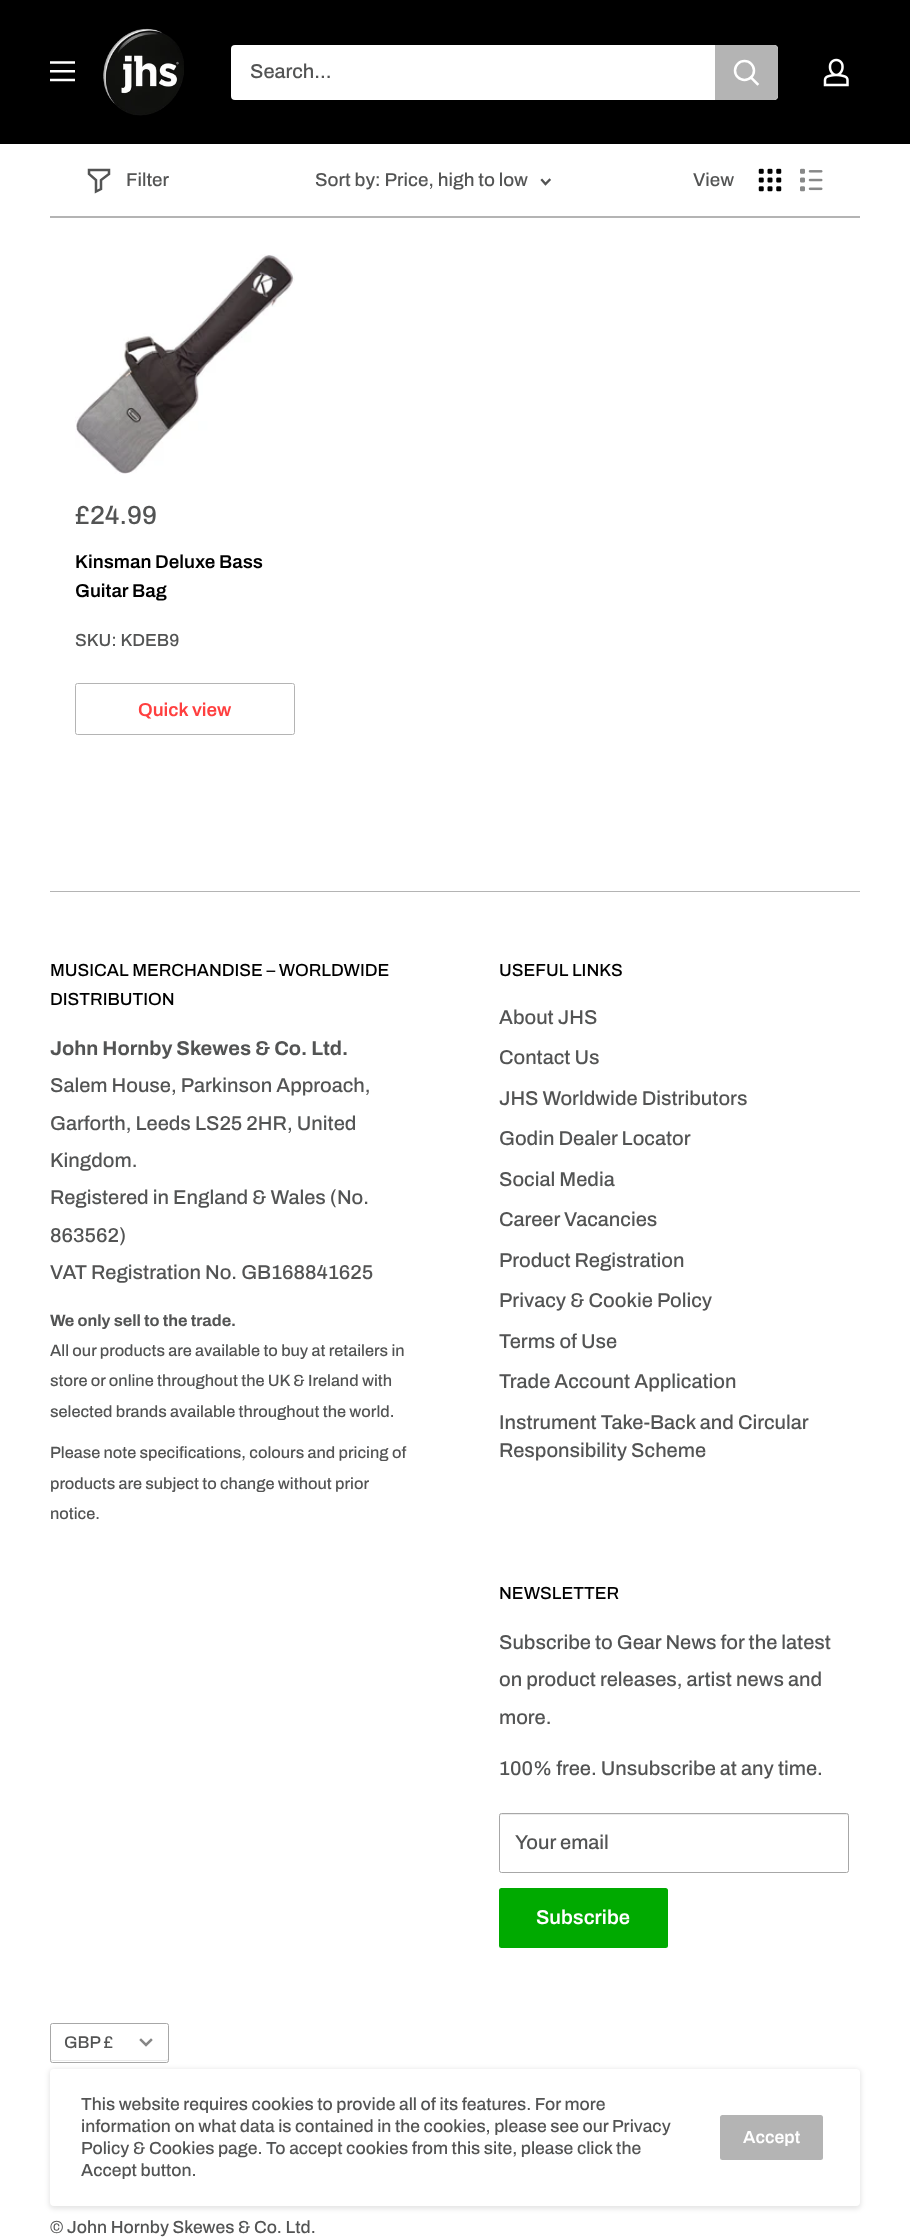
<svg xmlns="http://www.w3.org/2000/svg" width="910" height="2237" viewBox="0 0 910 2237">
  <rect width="100%" height="100%" fill="#fff"/>
  <path d="M0 0h910v144H0z" fill="#000"/>
  <image x="50" y="61" width="25" height="21" href="img/1.png"/>
  <image x="103" y="28" width="81" height="88" href="img/2.png"/>
  <rect x="231" y="45" width="547" height="55" rx="4" fill="#fff"/>
  <path d="M715 45H774C776 45 778 47 778 49V96C778 98 776 100 774 100H715Z" fill="#b4b4b4"/>
  <path d="M757.5 84L751 77.5" fill="none" stroke="#fff" stroke-width="2.5" stroke-linecap="square"/>
  <circle cx="744.5" cy="70.5" r="9.5" fill="none" stroke="#fff" stroke-width="2.5"/>
  <image x="823" y="58" width="26" height="29" href="img/3.png"/>
  <path d="M50 216h810v2H50z" fill="#b4b4b4"/>
  <path d="M109 174L101 180V189L96 191.5V180L89 174V170H109Z" fill="none" stroke="#535454" stroke-width="2.5" stroke-linecap="square"/>
  <path d="M549.5 180L545.5 184L542 180" fill="none" stroke="#535454" stroke-width="2.3" stroke-linecap="square"/>
  <image x="758" y="168" width="24" height="24" href="img/4.png"/>
  <image x="800" y="168" width="23" height="24" href="img/5.png"/>
  <image x="75" y="254" width="220" height="220" href="img/6.png"/>
  <rect x="75.5" y="683.5" width="219" height="51" rx="2" fill="none" stroke="#b4b4b4"/>
  <path d="M50 891h810v1H50z" fill="#b4b4b4"/>
  <path d="M501 1815H846C847 1815 848 1816 848 1816V1814H674H501L500 1815V1816Z" fill="#ececec"/>
  <rect x="499.5" y="1813.5" width="349" height="59" rx="2" fill="none" stroke="#a7a7a7"/>
  <rect x="499" y="1888" width="169" height="60" rx="2.5" fill="#0a0"/>
  <path d="M51 2059C51 2060 51 2061 52 2061H167C168 2061 168 2060 168 2059L166 2060H52Z" fill="#e9e9e9"/>
  <rect x="50.5" y="2023.5" width="118" height="39" rx="2" fill="none" stroke="#a7a7a7"/>
  <path d="M151 2040L146 2045L141 2040" fill="none" stroke="#878787" stroke-width="2.5" stroke-linecap="square"/>
  <rect x="49" y="2069" width="812" height="140" rx="5" fill="#0000001a" filter="blur(2.5px)"/>
  <rect x="50" y="2069" width="810" height="137" rx="4" fill="#fff"/>
  <rect x="720" y="2115" width="103" height="45" rx="2.5" fill="#b4b4b4"/>
  <text x="250" y="78" font-family="Archivo" font-size="20" font-weight="500" fill="#535454">Search...</text>
  <g font-family="Archivo" font-size="18.75" font-weight="500" fill="#535454">
    <text x="126" y="186">Filter</text>
    <text x="315" y="186">Sort by: Price, high to low</text>
    <text x="693" y="186">View</text>
  </g>
  <text x="75" y="524" font-family="Archivo" font-size="26" font-weight="500" fill="#535454">£24.99</text>
  <g font-family="Archivo" font-size="18.75" font-weight="600" fill="#000">
    <text x="75" y="568">Kinsman Deluxe Bass</text>
    <text x="75" y="597">Guitar Bag</text>
  </g>
  <text x="75" y="646" font-family="Archivo" font-size="17.5" font-weight="500" fill="#535454">SKU: KDEB9</text>
  <text x="138" y="716" font-family="Archivo" font-size="18.75" font-weight="600" fill="#ff3f3f">Quick view</text>
  <g font-family="Archivo" font-size="17.5" font-weight="500" fill="#000">
    <text x="50" y="976">MUSICAL MERCHANDISE – WORLDWIDE</text>
    <text x="50" y="1005">DISTRIBUTION</text>
  </g>
  <text x="50" y="1055" font-family="Archivo" font-size="20" font-weight="bold" fill="#535454">John Hornby Skewes &amp; Co. Ltd.</text>
  <g font-family="Archivo" font-size="20" font-weight="500" fill="#535454">
    <text x="50" y="1092">Salem House, Parkinson Approach,</text>
    <text x="50" y="1130">Garforth, Leeds LS25 2HR, United</text>
    <text x="50" y="1167">Kingdom.</text>
    <text x="50" y="1204">Registered in England &amp; Wales (No.</text>
    <text x="50" y="1242">863562)</text>
    <text x="50" y="1279">VAT Registration No. GB168841625</text>
  </g>
  <text x="50" y="1326" font-family="Archivo" font-size="16.25" font-weight="bold" fill="#535454">We only sell to the trade.</text>
  <g font-family="Archivo" font-size="16.25" font-weight="500" fill="#535454">
    <text x="50" y="1356">All our products are available to buy at retailers in</text>
    <text x="50" y="1386">store or online throughout the UK &amp; Ireland with</text>
    <text x="50" y="1417">selected brands available throughout the world.</text>
    <text x="50" y="1458">Please note specifications, colours and pricing of</text>
    <text x="50" y="1489">products are subject to change without prior</text>
    <text x="50" y="1519">notice.</text>
  </g>
  <text x="499" y="976" font-family="Archivo" font-size="17.5" font-weight="500" fill="#000">USEFUL LINKS</text>
  <g font-family="Archivo" font-size="20" font-weight="500" fill="#535454">
    <text x="499" y="1024">About JHS</text>
    <text x="499" y="1064">Contact Us</text>
    <text x="499" y="1105">JHS Worldwide Distributors</text>
    <text x="499" y="1145">Godin Dealer Locator</text>
    <text x="499" y="1186">Social Media</text>
    <text x="499" y="1226">Career Vacancies</text>
    <text x="499" y="1267">Product Registration</text>
    <text x="499" y="1307">Privacy &amp; Cookie Policy</text>
    <text x="499" y="1348">Terms of Use</text>
    <text x="499" y="1388">Trade Account Application</text>
    <text x="499" y="1429">Instrument Take-Back and Circular</text>
    <text x="499" y="1457">Responsibility Scheme</text>
  </g>
  <text x="499" y="1599" font-family="Archivo" font-size="17.5" font-weight="500" fill="#000">NEWSLETTER</text>
  <g font-family="Archivo" font-size="20" font-weight="500" fill="#535454">
    <text x="499" y="1649">Subscribe to Gear News for the latest</text>
    <text x="499" y="1686">on product releases, artist news and</text>
    <text x="499" y="1724">more.</text>
    <text x="499" y="1775">100% free. Unsubscribe at any time.</text>
    <text x="515" y="1849">Your email</text>
  </g>
  <text x="536" y="1924" font-family="Archivo" font-size="20" font-weight="600" fill="#fff">Subscribe</text>
  <text x="64" y="2048" font-family="Archivo" font-size="17" font-weight="500" fill="#535454">GBP £</text>
  <g font-family="Archivo" font-size="17.5" font-weight="500" fill="#535454">
    <text x="50" y="2233">© John Hornby Skewes &amp; Co. Ltd.</text>
    <text x="81" y="2110">This website requires cookies to provide all of its features. For more</text>
    <text x="81" y="2132">information on what data is contained in the cookies, please see our Privacy</text>
    <text x="81" y="2154">Policy &amp; Cookies page. To accept cookies from this site, please click the</text>
    <text x="81" y="2176">Accept button.</text>
  </g>
  <text x="743" y="2143" font-family="Archivo" font-size="17.5" font-weight="600" fill="#fff">Accept</text>
</svg>
